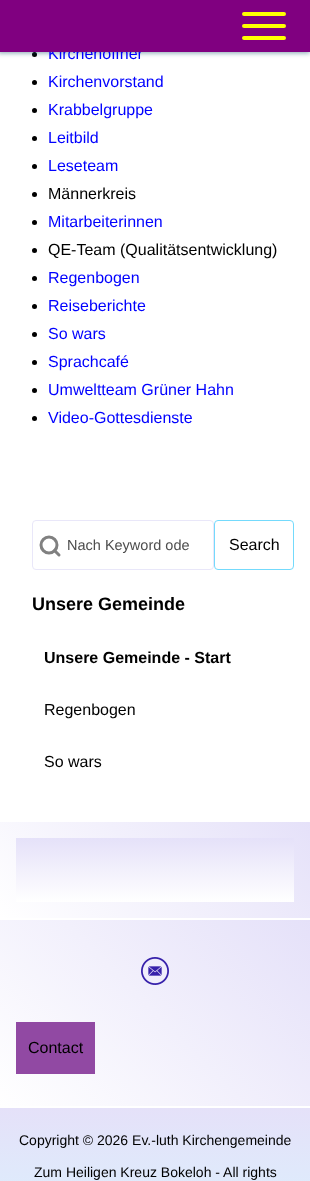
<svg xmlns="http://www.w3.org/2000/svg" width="310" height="1181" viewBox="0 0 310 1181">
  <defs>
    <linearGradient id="g1" gradientUnits="userSpaceOnUse" x1="54" y1="972" x2="257" y2="769"><stop offset="0" stop-color="#fff"/><stop offset="1" stop-color="#e5e1f9"/></linearGradient>
    <linearGradient id="g2" gradientUnits="userSpaceOnUse" x1="155" y1="902" x2="155" y2="838"><stop offset="0" stop-color="#fff"/><stop offset="1" stop-color="#e5e1f9"/></linearGradient>
    <linearGradient id="g3" gradientUnits="userSpaceOnUse" x1="31" y1="1137" x2="279" y2="889"><stop offset="0" stop-color="#fff"/><stop offset="1" stop-color="#e5e1f9"/></linearGradient>
    <linearGradient id="g4" gradientUnits="userSpaceOnUse" x1="155" y1="1108" x2="155" y2="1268"><stop offset="0" stop-color="#e5e1f9"/><stop offset="1" stop-color="#d8f4fe"/></linearGradient>
  </defs>
  <rect width="100%" height="100%" fill="#fff"/>
  <circle cx="34.5" cy="54.5" r="2.5" fill="#000"/>
  <path d="M-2 -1h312v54H-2z" fill="#02475e80" filter="blur(2.5px)"/>
  <circle cx="34.5" cy="82.5" r="2.5" fill="#000"/>
  <circle cx="34.5" cy="110.5" r="2.5" fill="#000"/>
  <circle cx="34.5" cy="138.5" r="2.5" fill="#000"/>
  <circle cx="34.5" cy="166.5" r="2.5" fill="#000"/>
  <circle cx="34.5" cy="194.5" r="2.5" fill="#000"/>
  <circle cx="34.5" cy="222.5" r="2.5" fill="#000"/>
  <circle cx="34.5" cy="250.5" r="2.5" fill="#000"/>
  <circle cx="34.5" cy="278.5" r="2.5" fill="#000"/>
  <circle cx="34.5" cy="306.5" r="2.5" fill="#000"/>
  <circle cx="34.5" cy="334.5" r="2.5" fill="#000"/>
  <circle cx="34.5" cy="362.5" r="2.5" fill="#000"/>
  <circle cx="34.5" cy="390.5" r="2.5" fill="#000"/>
  <circle cx="34.5" cy="418.5" r="2.5" fill="#000"/>
  <rect x="32.5" y="520.5" width="181" height="49" rx="3.5" fill="none" stroke="#e9e7f9"/>
  <circle cx="49" cy="545" r="8" fill="none" stroke="#808080" stroke-width="3"/>
  <path d="M59 555L54.5 550.5" fill="none" stroke="#808080" stroke-width="3" stroke-linecap="round" stroke-linejoin="round"/>
  <rect x="214.5" y="520.5" width="79" height="49" rx="3.5" fill="none" stroke="#74dafc"/>
  <path d="M0 822h310v96H0z" fill="url(#g1)"/>
  <path d="M16 838h278v64H16z" fill="url(#g2)"/>
  <path d="M0 920h310v186H0z" fill="url(#g3)"/>
  <image x="141" y="957" width="28" height="28" href="img/1.png"/>
  <path d="M16 1022h79v52H16z" fill="#9149a3"/>
  <path d="M0 1108h310v73H0z" fill="url(#g4)"/>
  <text x="48" y="59" font-family="Liberation Sans" font-size="16" fill="#00f">Kirchenöffner</text>
  <path d="M0 0h310v52H0z" fill="#800080"/>
  <path d="M244 38H284ZM244 26H284ZM244 14H284Z" fill="none" stroke="#ff0" stroke-width="4" stroke-linecap="round" stroke-linejoin="round"/>
  <g font-family="Liberation Sans" font-size="16" fill="#00f">
    <text x="48" y="87">Kirchenvorstand</text>
    <text x="48" y="115">Krabbelgruppe</text>
    <text x="48" y="143">Leitbild</text>
    <text x="48" y="171">Leseteam</text>
  </g>
  <text x="48" y="199" font-family="Liberation Sans" font-size="16" fill="#000">Männerkreis</text>
  <text x="48" y="227" font-family="Liberation Sans" font-size="16" fill="#00f">Mitarbeiterinnen</text>
  <text x="48" y="255" font-family="Liberation Sans" font-size="16" fill="#000">QE-Team (Qualitätsentwicklung)</text>
  <g font-family="Liberation Sans" font-size="16" fill="#00f">
    <text x="48" y="283">Regenbogen</text>
    <text x="48" y="311">Reiseberichte</text>
    <text x="48" y="339">So wars</text>
    <text x="48" y="367">Sprachcafé</text>
    <text x="48" y="395">Umweltteam Grüner Hahn</text>
    <text x="48" y="423">Video-Gottesdienste</text>
  </g>
  <text x="67" y="550" font-family="Liberation Sans" font-size="14.5" fill="#4d4d4d">Nach Keyword ode</text>
  <text x="229" y="550" font-family="Liberation Sans" font-size="16" fill="#000">Search</text>
  <text x="32" y="610" font-family="Liberation Sans" font-size="18" font-weight="bold" fill="#000">Unsere Gemeinde</text>
  <text x="44" y="663" font-family="Liberation Sans" font-size="16" font-weight="bold" fill="#000">Unsere Gemeinde - Start</text>
  <g font-family="Liberation Sans" font-size="16" fill="#000">
    <text x="44" y="715">Regenbogen</text>
    <text x="44" y="767">So wars</text>
    <text x="28" y="1053">Contact</text>
  </g>
  <g font-family="Liberation Sans" font-size="14" fill="#000">
    <text x="19" y="1145">Copyright © 2026 Ev.-luth Kirchengemeinde</text>
    <text x="34" y="1177">Zum Heiligen Kreuz Bokeloh - All rights</text>
  </g>
</svg>
